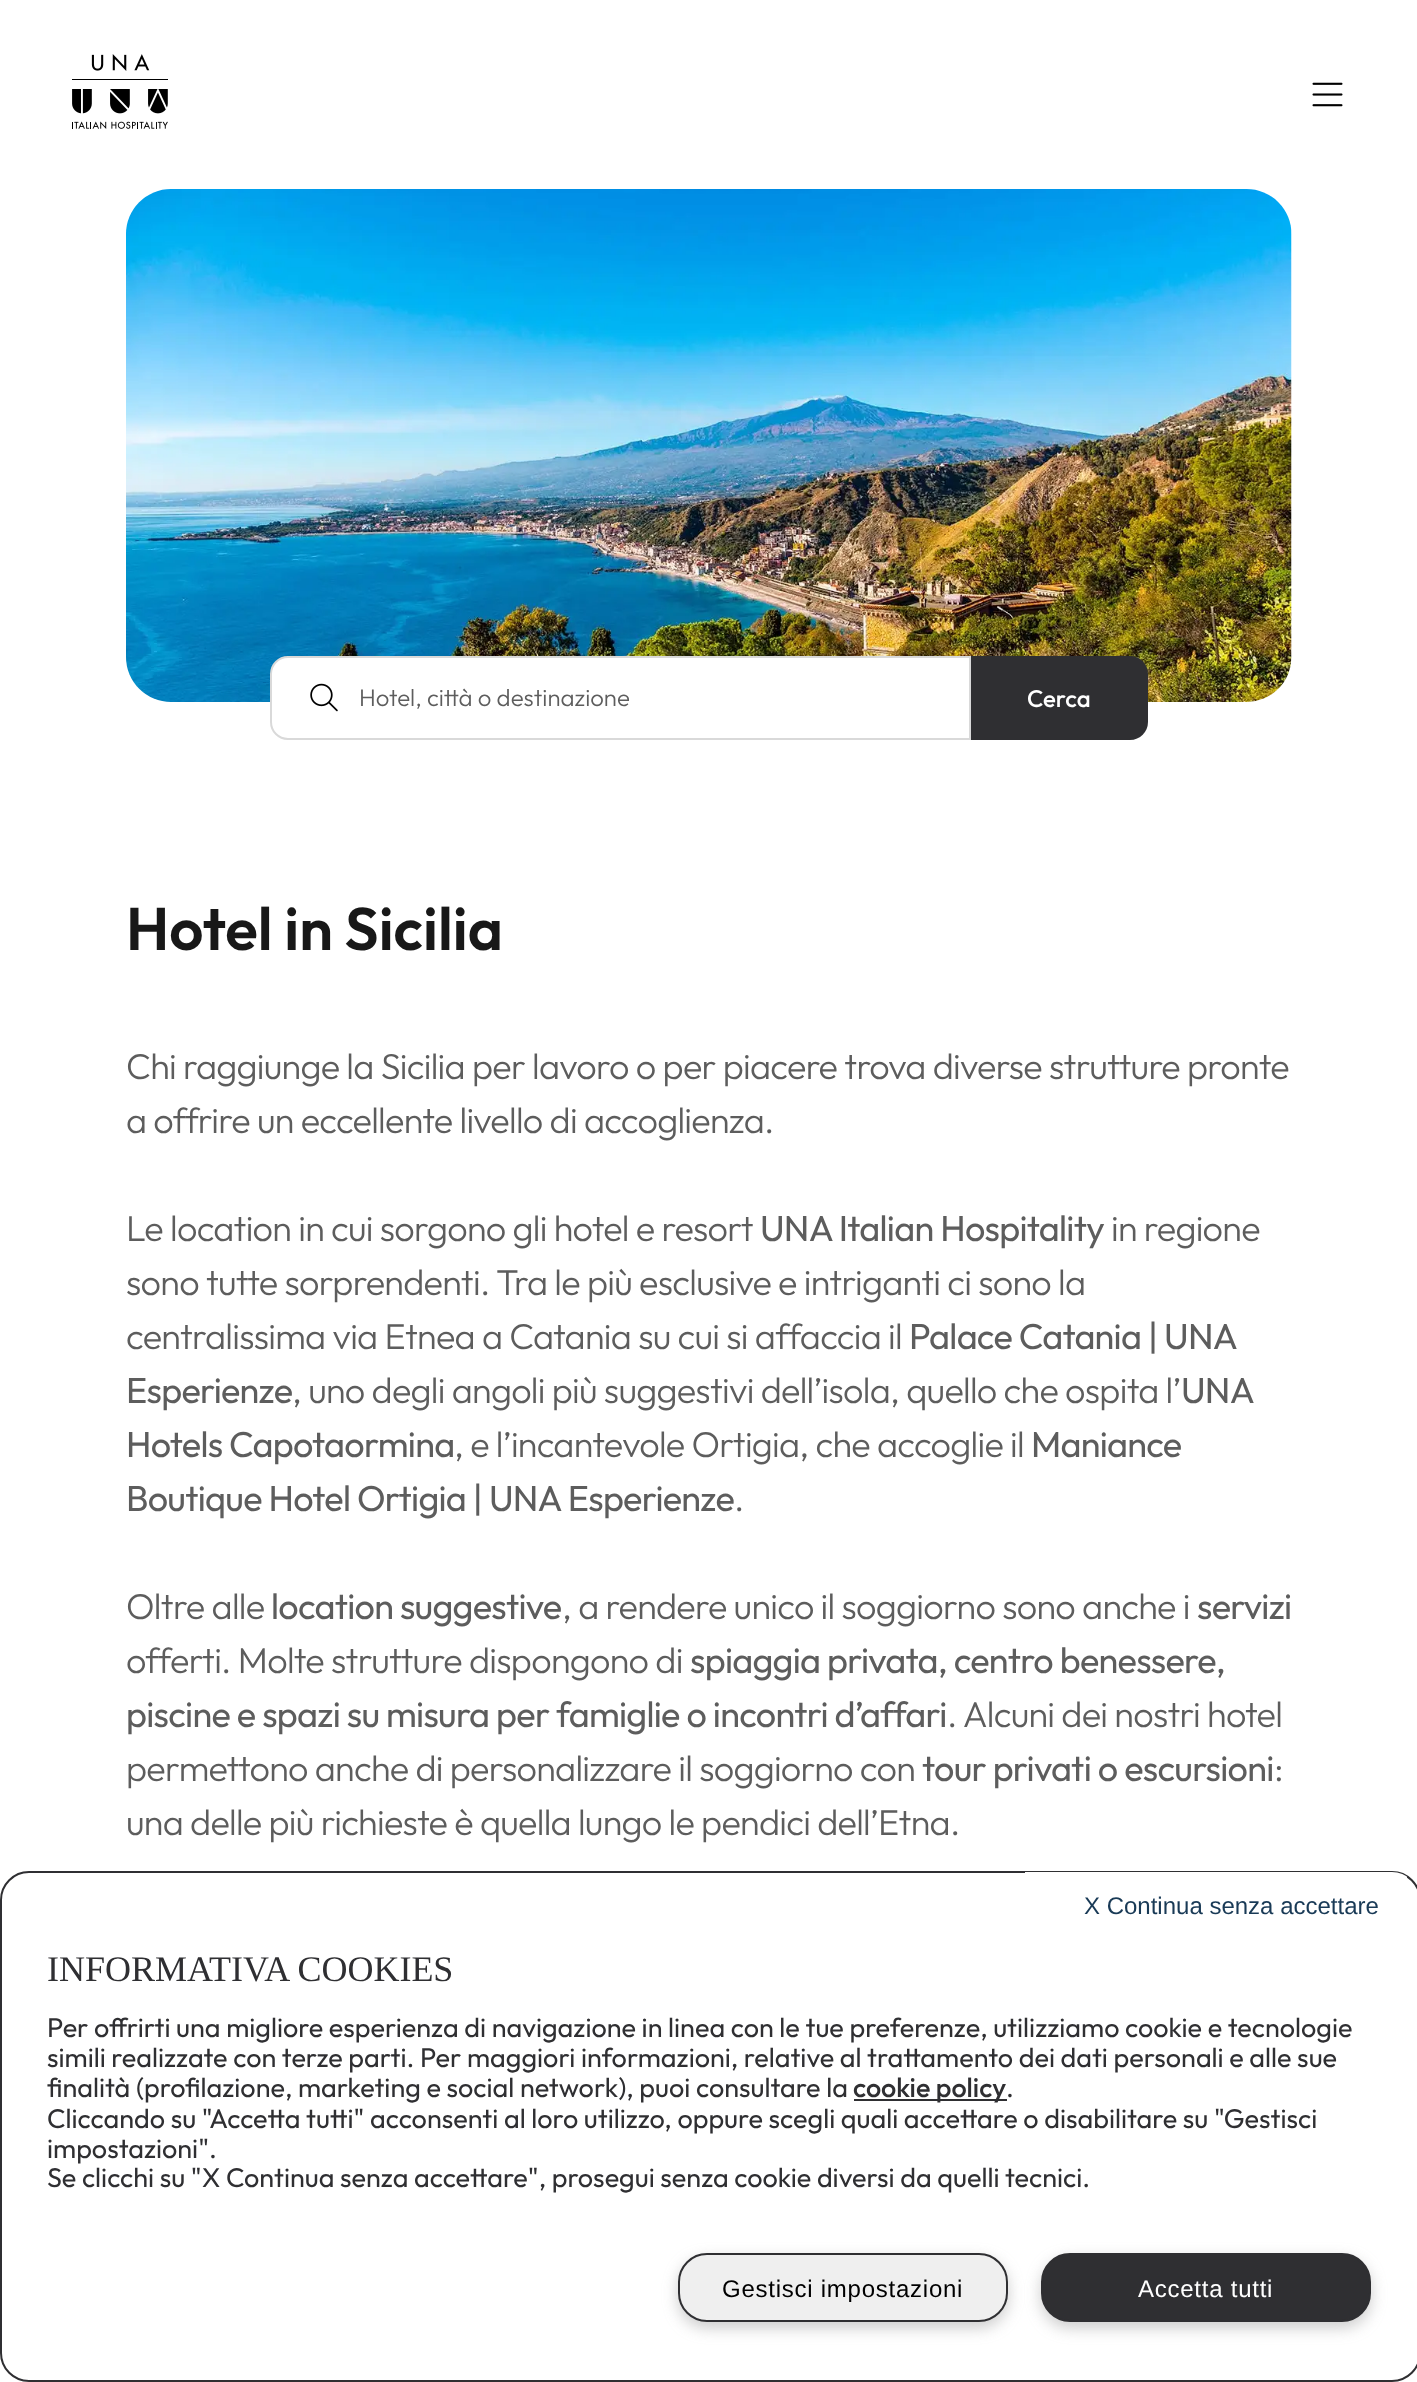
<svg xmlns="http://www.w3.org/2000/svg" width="1417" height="2382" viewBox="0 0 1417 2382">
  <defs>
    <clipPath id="clip1"><rect x="2" y="1872" width="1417" height="509" rx="27"/></clipPath>
  </defs>
  <rect width="100%" height="100%" fill="#fff"/>
  <image x="72" y="54" width="96" height="75" href="img/1.png"/>
  <image x="1312" y="82" width="31" height="25" href="img/2.png"/>
  <image x="126" y="189" width="1166" height="513" href="img/3.png"/>
  <path d="M288 657H970V739H288C278.5 739 271 731.5 271 722V674C271 664.5 278.5 657 288 657Z" fill="#fff" stroke="#d9d9d9" stroke-width="2"/>
  <image x="310" y="683" width="28" height="29" href="img/4.png"/>
  <path d="M971 656H1130C1140 656 1148 664 1148 674V722C1148 732 1140 740 1130 740H971Z" fill="#2f2f32"/>
  <rect x="1" y="1872" width="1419" height="509" rx="28" fill="none" stroke="#2f2f32" stroke-width="2"/>
  <g clip-path="url(#clip1)">
    <path d="M1025 1872h382v48H1025z" fill="#fff"/>
  </g>
  <path d="M854 2099h153v2H854z" fill="#2f2f32"/>
  <rect x="678" y="2259" width="330" height="69" rx="29" fill="#81818166" filter="blur(7.5px)"/>
  <rect x="679" y="2254" width="328" height="67" rx="28" fill="#efefef" stroke="#2f2f32" stroke-width="2"/>
  <rect x="1041" y="2259" width="330" height="69" rx="29" fill="#81818166" filter="blur(7.5px)"/>
  <rect x="1042" y="2254" width="328" height="67" rx="28" fill="#2f2f32" stroke="#2f2f32" stroke-width="2"/>
  <text x="359" y="706" font-family="Outfit" font-size="24" font-weight="300" fill="#5d5d5d">Hotel, città o destinazione</text>
  <text x="1027" y="707" font-family="Outfit" font-size="24" font-weight="500" fill="#fff">Cerca</text>
  <text x="126" y="950" font-family="Outfit" font-size="60" font-weight="600" fill="#181818">Hotel in Sicilia</text>
  <g font-family="Outfit" font-size="36" font-weight="300" letter-spacing="-0.72" fill="#5d5d5d">
    <text x="126" y="1079">Chi raggiunge la Sicilia per lavoro o per piacere trova diverse strutture pronte</text>
    <text x="126" y="1133">a offrire un eccellente livello di accoglienza.</text>
    <text x="126" y="1241">Le location in cui sorgono gli hotel e resort</text>
  </g>
  <text x="760" y="1241" font-family="Outfit" font-size="36" letter-spacing="-0.72" fill="#5d5d5d">UNA Italian Hospitality</text>
  <g font-family="Outfit" font-size="36" font-weight="300" letter-spacing="-0.72" fill="#5d5d5d">
    <text x="1111" y="1241">in regione</text>
    <text x="126" y="1295">sono tutte sorprendenti. Tra le più esclusive e intriganti ci sono la</text>
    <text x="126" y="1349">centralissima via Etnea a Catania su cui si affaccia il</text>
  </g>
  <g font-family="Outfit" font-size="36" letter-spacing="-0.72" fill="#5d5d5d">
    <text x="909" y="1349">Palace Catania | UNA</text>
    <text x="126" y="1403">Esperienze</text>
  </g>
  <text x="292" y="1403" font-family="Outfit" font-size="36" font-weight="300" letter-spacing="-0.72" fill="#5d5d5d">, uno degli angoli più suggestivi dell’isola, quello che ospita l’</text>
  <g font-family="Outfit" font-size="36" letter-spacing="-0.72" fill="#5d5d5d">
    <text x="1181" y="1403">UNA</text>
    <text x="126" y="1457">Hotels Capotaormina</text>
  </g>
  <text x="454" y="1457" font-family="Outfit" font-size="36" font-weight="300" letter-spacing="-0.72" fill="#5d5d5d">, e l’incantevole Ortigia, che accoglie il</text>
  <g font-family="Outfit" font-size="36" letter-spacing="-0.72" fill="#5d5d5d">
    <text x="1031" y="1457">Maniance</text>
    <text x="126" y="1511">Boutique Hotel Ortigia | UNA Esperienze</text>
  </g>
  <g font-family="Outfit" font-size="36" font-weight="300" letter-spacing="-0.72" fill="#5d5d5d">
    <text x="734" y="1511">.</text>
    <text x="126" y="1619">Oltre alle</text>
  </g>
  <text x="271" y="1619" font-family="Outfit" font-size="36" letter-spacing="-0.72" fill="#5d5d5d">location suggestive</text>
  <text x="562" y="1619" font-family="Outfit" font-size="36" font-weight="300" letter-spacing="-0.72" fill="#5d5d5d">, a rendere unico il soggiorno sono anche i</text>
  <text x="1197" y="1619" font-family="Outfit" font-size="36" letter-spacing="-0.72" fill="#5d5d5d">servizi</text>
  <text x="126" y="1673" font-family="Outfit" font-size="36" font-weight="300" letter-spacing="-0.72" fill="#5d5d5d">offerti. Molte strutture dispongono di</text>
  <g font-family="Outfit" font-size="36" letter-spacing="-0.72" fill="#5d5d5d">
    <text x="690" y="1673">spiaggia privata, centro benessere,</text>
    <text x="126" y="1727">piscine e spazi su misura per famiglie o incontri d’affari</text>
  </g>
  <g font-family="Outfit" font-size="36" font-weight="300" letter-spacing="-0.72" fill="#5d5d5d">
    <text x="947" y="1727">. Alcuni dei nostri hotel</text>
    <text x="126" y="1781">permettono anche di personalizzare il soggiorno con</text>
  </g>
  <text x="922" y="1781" font-family="Outfit" font-size="36" letter-spacing="-0.72" fill="#5d5d5d">tour privati o escursioni</text>
  <g font-family="Outfit" font-size="36" font-weight="300" letter-spacing="-0.72" fill="#5d5d5d">
    <text x="1274" y="1781">:</text>
    <text x="126" y="1835">una delle più richieste è quella lungo le pendici dell’Etna.</text>
  </g>
  <text x="1084" y="1914" font-family="Liberation Sans" font-size="24" fill="#193a56">X Continua senza accettare</text>
  <text x="47" y="1981" font-family="Liberation Serif" font-size="36" fill="#2f2f32">INFORMATIVA COOKIES</text>
  <g font-family="Outfit" font-size="27" fill="#2f2f32">
    <text x="47" y="2037">Per offrirti una migliore esperienza di navigazione in linea con le tue preferenze, utilizziamo cookie e tecnologie</text>
    <text x="47" y="2067">simili realizzate con terze parti. Per maggiori informazioni, relative al trattamento dei dati personali e alle sue</text>
    <text x="47" y="2097">finalità (profilazione, marketing e social network), puoi consultare la</text>
  </g>
  <text x="853" y="2097" font-family="Outfit" font-size="27" font-weight="500" fill="#2f2f32">cookie policy</text>
  <g font-family="Outfit" font-size="27" fill="#2f2f32">
    <text x="1006" y="2097">.</text>
    <text x="47" y="2128">Cliccando su "Accetta tutti" acconsenti al loro utilizzo, oppure scegli quali accettare o disabilitare su "Gestisci</text>
    <text x="47" y="2158">impostazioni".</text>
    <text x="47" y="2187">Se clicchi su "X Continua senza accettare", prosegui senza cookie diversi da quelli tecnici.</text>
  </g>
  <text x="722" y="2297" font-family="Liberation Sans" font-size="24" letter-spacing="0.75" fill="#000">Gestisci impostazioni</text>
  <text x="1138" y="2297" font-family="Liberation Sans" font-size="24" letter-spacing="0.75" fill="#fff">Accetta tutti</text>
</svg>
